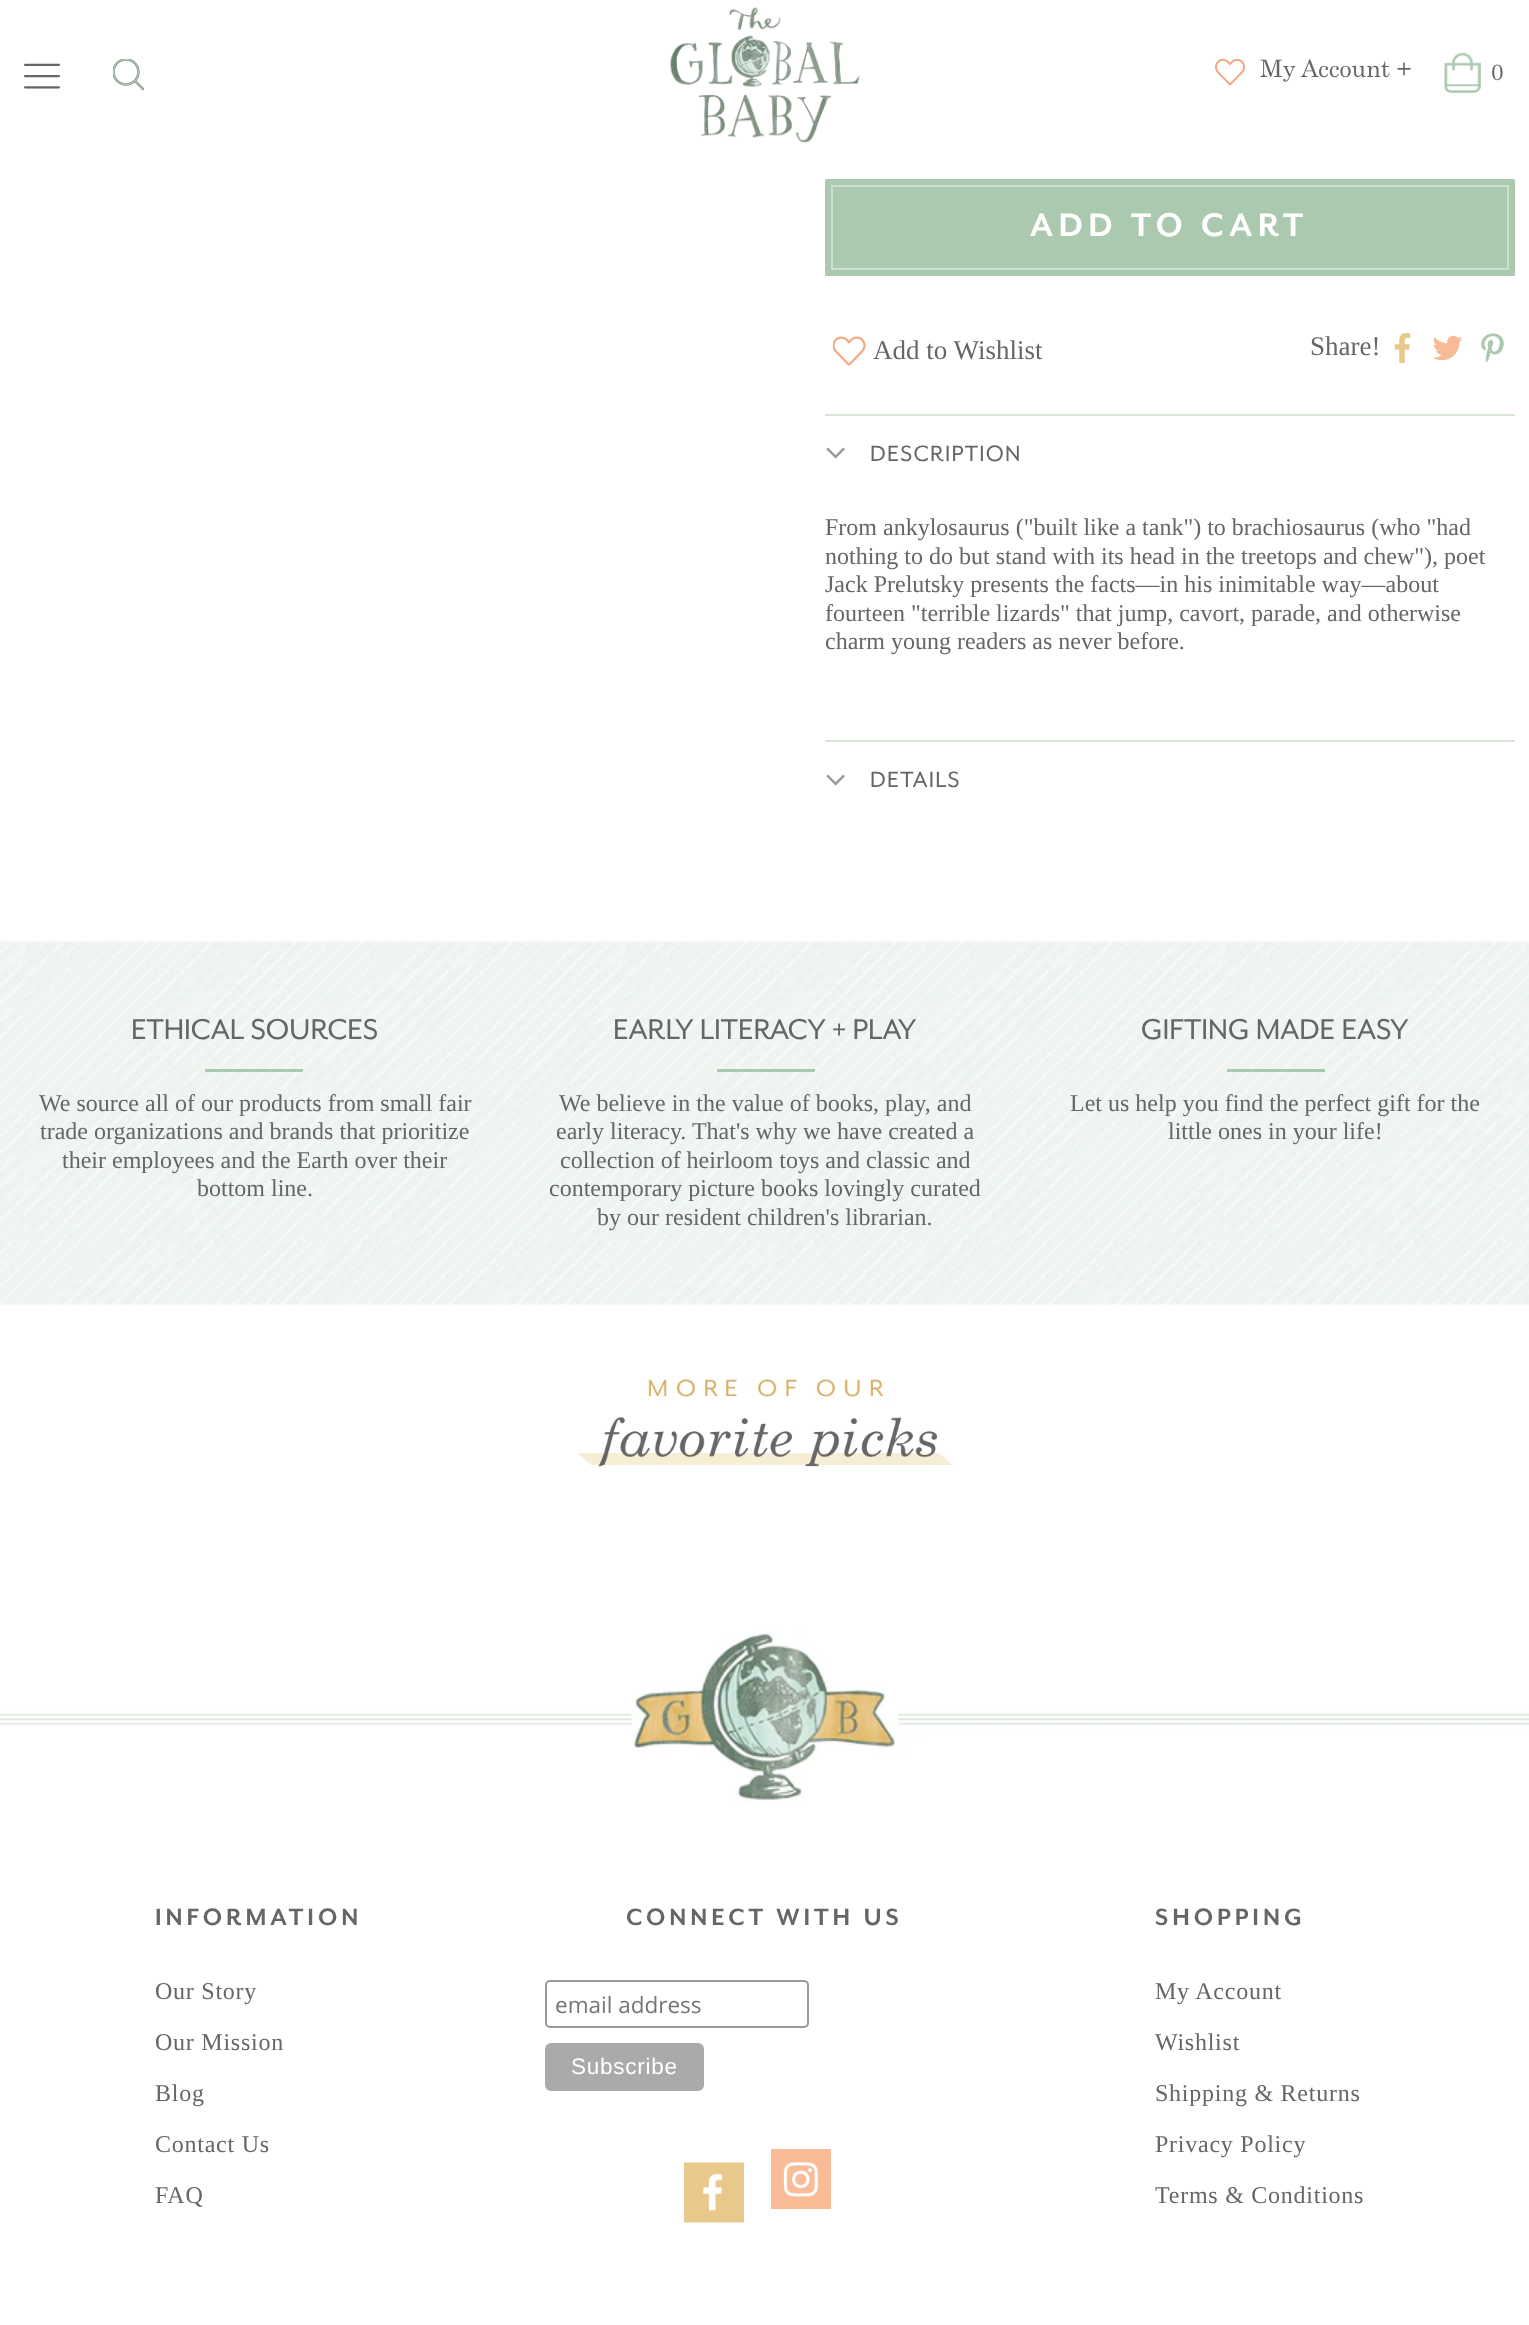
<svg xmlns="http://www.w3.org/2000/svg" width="1529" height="2325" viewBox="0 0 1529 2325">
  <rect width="100%" height="100%" fill="#fff"/>
  <image x="24" y="63" width="36" height="26" href="img/1.png"/>
  <image x="113" y="59" width="31" height="31" href="img/2.png"/>
  <image x="670" y="7" width="190" height="136" href="img/3.png"/>
  <image x="1215" y="58" width="30" height="28" href="img/4.png"/>
  <image x="1444" y="52" width="37" height="41" href="img/5.png"/>
  <rect x="825" y="179" width="690" height="97" rx="1.5" fill="#abc9ae"/>
  <path d="M832 186h676v83H832z" fill="none" stroke="#cddfce" stroke-width="2"/>
  <image x="833" y="336" width="33" height="30" href="img/6.png"/>
  <image x="1394" y="333" width="17" height="30" href="img/7.png"/>
  <image x="1433" y="335" width="30" height="26" href="img/8.png"/>
  <image x="1481" y="333" width="23" height="30" href="img/9.png"/>
  <path d="M825 414h690v2H825z" fill="#d9e6d7"/>
  <image x="826" y="447" width="19" height="12" href="img/10.png"/>
  <path d="M825 740h690v2H825z" fill="#d9e6d7"/>
  <image x="826" y="774" width="19" height="12" href="img/10.png"/>
  <image x="0" y="941" width="1529" height="364" href="img/11.png"/>
  <path d="M205 1069h98v3H205z" fill="#abc9ae"/>
  <path d="M717 1069h98v3H717z" fill="#abc9ae"/>
  <path d="M1227 1069h98v3H1227z" fill="#abc9ae"/>
  <image x="577" y="1379" width="376" height="88" href="img/12.png"/>
  <image x="0" y="1630" width="1529" height="173" href="img/13.png"/>
  <rect x="546" y="1981" width="262" height="46" rx="4" fill="none" stroke="#999" stroke-width="2"/>
  <rect x="545" y="2043" width="159" height="48" rx="6" fill="#aaa"/>
  <image x="684" y="2162" width="60" height="61" href="img/14.png"/>
  <image x="771" y="2149" width="60" height="60" href="img/15.png"/>
  <text x="1260" y="77" font-family="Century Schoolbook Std" font-size="24" fill="#666">My Account +</text>
  <text x="1491" y="80" font-family="Century Schoolbook Std" font-size="22.5" fill="#666">0</text>
  <text x="1030" y="236" font-family="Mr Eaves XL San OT" font-size="37.5" font-weight="bold" letter-spacing="5.6" fill="#fff">ADD TO CART</text>
  <g font-family="Liberation Serif" font-size="27" fill="#666">
    <text x="873" y="359">Add to Wishlist</text>
    <text x="1310" y="355">Share!</text>
  </g>
  <text x="870" y="461" font-family="Mr Eaves XL San OT" font-size="25.5" letter-spacing="1.25" fill="#666">DESCRIPTION</text>
  <g font-family="Liberation Serif" font-size="24" fill="#666">
    <text x="825" y="535">From ankylosaurus ("built like a tank") to brachiosaurus (who "had</text>
    <text x="825" y="564">nothing to do but stand with its head in the treetops and chew"), poet</text>
    <text x="825" y="592">Jack Prelutsky presents the facts—in his inimitable way—about</text>
    <text x="825" y="621">fourteen "terrible lizards" that jump, cavort, parade, and otherwise</text>
    <text x="825" y="649">charm young readers as never before.</text>
  </g>
  <text x="870" y="787" font-family="Mr Eaves XL San OT" font-size="25.5" letter-spacing="1.25" fill="#666">DETAILS</text>
  <text x="131" y="1039" font-family="Mr Eaves XL San OT" font-size="33" fill="#666">ETHICAL SOURCES</text>
  <g font-family="Liberation Serif" font-size="24" fill="#666">
    <text x="39" y="1111">We source all of our products from small fair</text>
    <text x="40" y="1139">trade organizations and brands that prioritize</text>
    <text x="62" y="1168">their employees and the Earth over their</text>
    <text x="197" y="1196">bottom line.</text>
  </g>
  <text x="613" y="1039" font-family="Mr Eaves XL San OT" font-size="33" fill="#666">EARLY LITERACY + PLAY</text>
  <g font-family="Liberation Serif" font-size="24" fill="#666">
    <text x="559" y="1111">We believe in the value of books, play, and</text>
    <text x="556" y="1139">early literacy. That's why we have created a</text>
    <text x="560" y="1168">collection of heirloom toys and classic and</text>
    <text x="549" y="1196">contemporary picture books lovingly curated</text>
    <text x="597" y="1225">by our resident children's librarian.</text>
  </g>
  <text x="1141" y="1039" font-family="Mr Eaves XL San OT" font-size="33" fill="#666">GIFTING MADE EASY</text>
  <g font-family="Liberation Serif" font-size="24" fill="#666">
    <text x="1070" y="1111">Let us help you find the perfect gift for the</text>
    <text x="1168" y="1139">little ones in your life!</text>
  </g>
  <text x="155" y="1925" font-family="Mr Eaves XL San OT" font-size="27" font-weight="bold" letter-spacing="4" fill="#666">INFORMATION</text>
  <g font-family="Liberation Serif" font-size="24" letter-spacing="0.75" fill="#666">
    <text x="155" y="1999">Our Story</text>
    <text x="155" y="2050">Our Mission</text>
    <text x="155" y="2101">Blog</text>
    <text x="155" y="2152">Contact Us</text>
    <text x="155" y="2203">FAQ</text>
  </g>
  <text x="626" y="1925" font-family="Mr Eaves XL San OT" font-size="27" font-weight="bold" letter-spacing="4" fill="#666">CONNECT WITH US</text>
  <text x="555" y="2013" font-family="Open Sans" font-size="22.5" fill="#757575">email address</text>
  <text x="571" y="2074" font-family="Liberation Sans" font-size="22.5" letter-spacing="0.75" fill="#fff">Subscribe</text>
  <text x="1155" y="1925" font-family="Mr Eaves XL San OT" font-size="27" font-weight="bold" letter-spacing="4" fill="#666">SHOPPING</text>
  <g font-family="Liberation Serif" font-size="24" letter-spacing="0.75" fill="#666">
    <text x="1155" y="1999">My Account</text>
    <text x="1155" y="2050">Wishlist</text>
    <text x="1155" y="2101">Shipping &amp; Returns</text>
    <text x="1155" y="2152">Privacy Policy</text>
    <text x="1155" y="2203">Terms &amp; Conditions</text>
  </g>
</svg>
